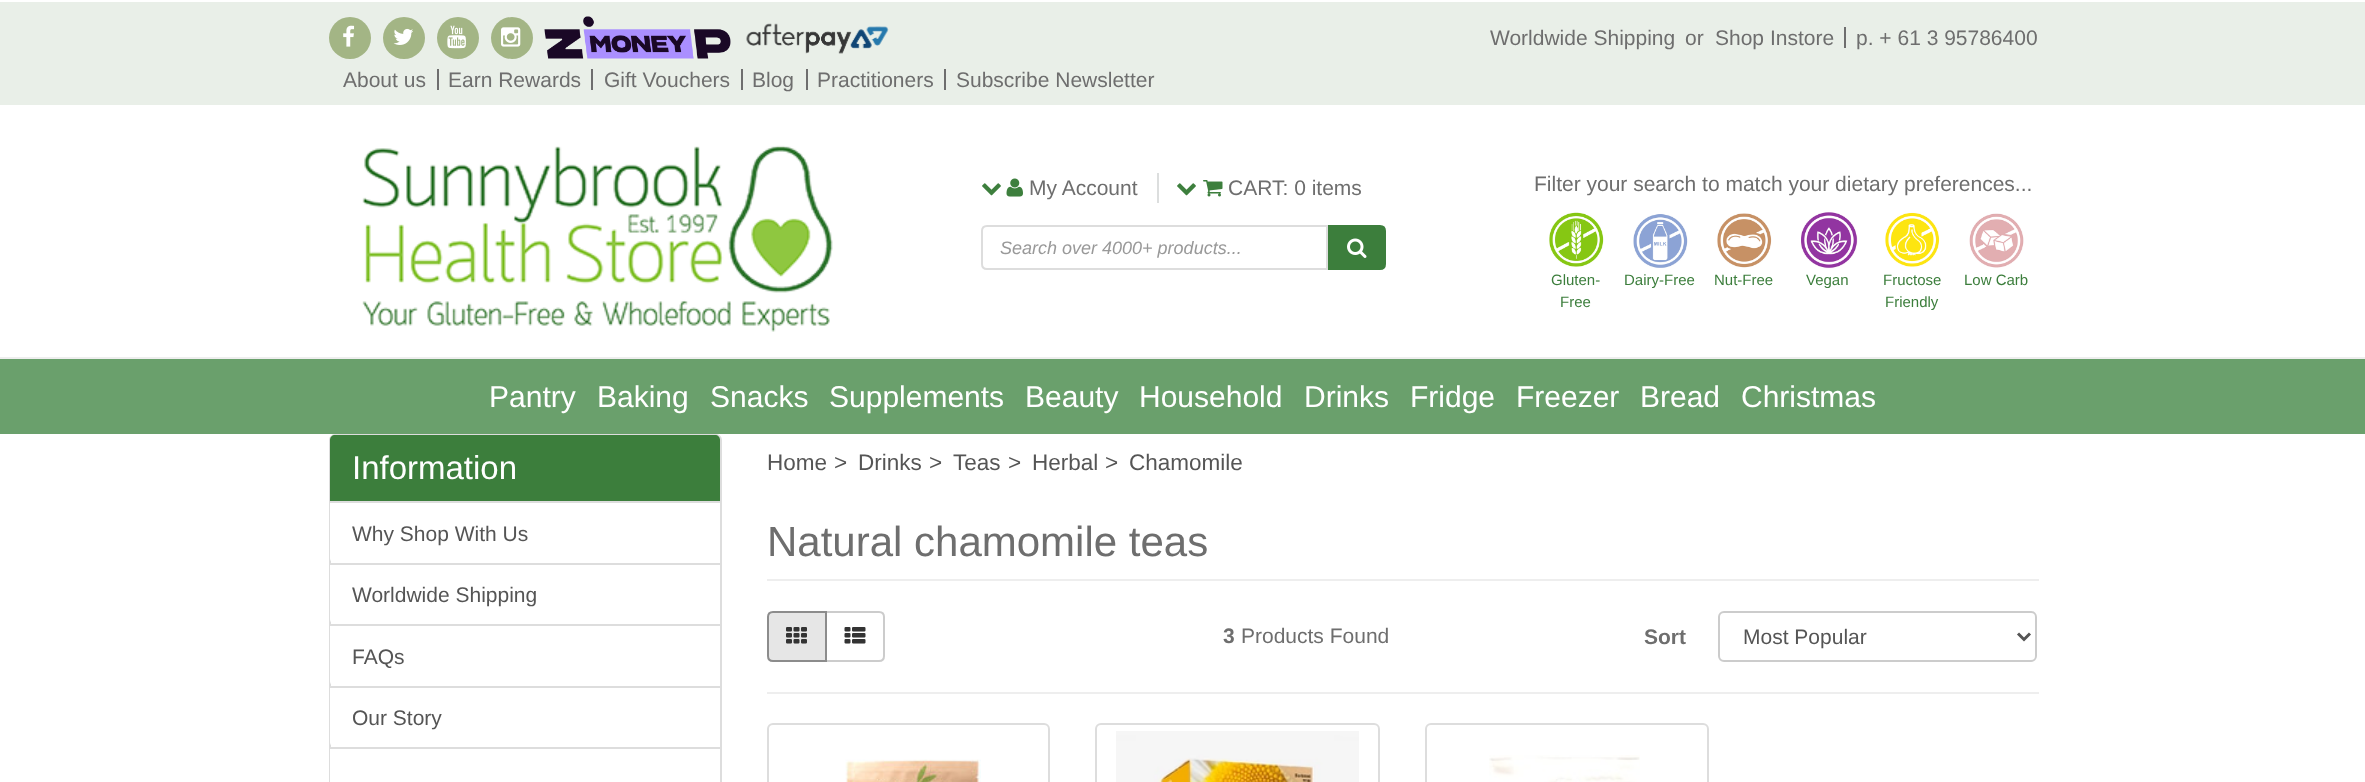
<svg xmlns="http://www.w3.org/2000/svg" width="2365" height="782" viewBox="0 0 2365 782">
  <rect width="100%" height="100%" fill="#fff"/>
  <path d="M0 2h2365v103H0z" fill="#e9efe8"/>
  <path d="M1844 27h2v21H1844z" fill="#6e6e6e"/>
  <circle cx="350" cy="38" r="21" fill="#a3b585"/>
  <image x="343" y="25" width="12" height="22" href="img/1.png"/>
  <circle cx="404" cy="38" r="21" fill="#a3b585"/>
  <image x="393" y="28" width="20" height="17" href="img/2.png"/>
  <circle cx="458" cy="38" r="21" fill="#a3b585"/>
  <image x="447" y="25" width="19" height="24" href="img/3.png"/>
  <circle cx="512" cy="38" r="21" fill="#a3b585"/>
  <image x="501" y="27" width="20" height="20" href="img/4.png"/>
  <image x="544" y="16" width="187" height="43" href="img/5.png"/>
  <image x="746" y="23" width="143" height="31" href="img/6.png"/>
  <path d="M437 69h2v21H437z" fill="#6e6e6e"/>
  <path d="M591 69h2v21H591z" fill="#6e6e6e"/>
  <path d="M741 69h2v21H741z" fill="#6e6e6e"/>
  <path d="M806 69h2v21H806z" fill="#6e6e6e"/>
  <path d="M944 69h2v21H944z" fill="#6e6e6e"/>
  <path d="M0 357h2365v2H0z" fill="#eee"/>
  <image x="362" y="145" width="471" height="187" href="img/7.png"/>
  <path d="M1157 173h2v30H1157z" fill="#dcdede"/>
  <image x="982" y="183" width="19" height="13" href="img/8.png"/>
  <image x="1006" y="178" width="17" height="19" href="img/9.png"/>
  <image x="1177" y="183" width="19" height="13" href="img/8.png"/>
  <image x="1203" y="180" width="20" height="17" href="img/10.png"/>
  <path d="M987 226H1327V269H987C984 269 982 267 982 264V231C982 228 984 226 987 226Z" fill="none" stroke="#ddd" stroke-width="2"/>
  <path d="M1329 226H1380C1383 226 1385 228 1385 231V264C1385 267 1383 269 1380 269H1329Z" fill="#3c7e3c" stroke="#3c7e3c" stroke-width="2"/>
  <image x="1347" y="238" width="20" height="20" href="img/11.png"/>
  <image x="1549" y="212" width="55" height="55" href="img/12.png"/>
  <image x="1633" y="214" width="55" height="54" href="img/13.png"/>
  <image x="1717" y="213" width="55" height="55" href="img/14.png"/>
  <image x="1801" y="212" width="57" height="57" href="img/15.png"/>
  <image x="1885" y="212" width="55" height="55" href="img/16.png"/>
  <image x="1969" y="213" width="55" height="55" href="img/17.png"/>
  <path d="M0 359h2365v75H0z" fill="#6aa06c"/>
  <rect x="330" y="435" width="391" height="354" rx="5" fill="none" stroke="#ddd" stroke-width="2"/>
  <path d="M335 435H715C718 435 720 437 720 440V503H330V440C330 437 332 435 335 435Z" fill="#3c7e3c"/>
  <path d="M330 501h390v2H330z" fill="#ddd"/>
  <path d="M330 503H720V558C720 561 718 563 715 563H335C332 563 330 561 330 558Z" fill="#fff"/>
  <path d="M330 563H720V619C720 622 718 624 715 624H335C332 624 330 622 330 619Z" fill="#fff"/>
  <path d="M330 563h390v2H330z" fill="#ddd"/>
  <path d="M330 624H720V681C720 684 718 686 715 686H335C332 686 330 684 330 681Z" fill="#fff"/>
  <path d="M330 624h390v2H330z" fill="#ddd"/>
  <path d="M330 686H720V742C720 745 718 747 715 747H335C332 747 330 745 330 742Z" fill="#fff"/>
  <path d="M330 686h390v2H330z" fill="#ddd"/>
  <path d="M330 749h1v33H330z" fill="#fff"/>
  <path d="M330 747h390v2H330z" fill="#ddd"/>
  <path d="M767 579h1272v2H767z" fill="#eee"/>
  <path d="M826 612H879C882 612 884 614 884 617V656C884 659 882 661 879 661H826Z" fill="none" stroke="#ccc" stroke-width="2"/>
  <path d="M773 612H826V661H773C770 661 768 659 768 656V617C768 614 770 612 773 612Z" fill="#e6e6e6" stroke="#8c8c8c" stroke-width="2"/>
  <image x="786" y="627" width="21" height="17" href="img/18.png"/>
  <image x="844" y="627" width="22" height="17" href="img/19.png"/>
  <rect x="1719" y="612" width="317" height="49" rx="5" fill="none" stroke="#ccc" stroke-width="2"/>
  <path d="M2018 633.5L2024 639.5L2030 633.5" fill="none" stroke="#555" stroke-width="3"/>
  <path d="M767 692h1272v2H767z" fill="#eee"/>
  <rect x="768" y="724" width="281" height="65" rx="5" fill="none" stroke="#ddd" stroke-width="2"/>
  <image x="845" y="759" width="136" height="23" href="img/20.png"/>
  <rect x="1096" y="724" width="283" height="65" rx="5" fill="none" stroke="#ddd" stroke-width="2"/>
  <image x="1116" y="731" width="243" height="51" href="img/21.png"/>
  <rect x="1426" y="724" width="282" height="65" rx="5" fill="none" stroke="#ddd" stroke-width="2"/>
  <image x="1489" y="755" width="151" height="27" href="img/22.png"/>
  <g font-family="Liberation Sans" font-size="21" fill="#6e6e6e">
    <text x="1490" y="45">Worldwide Shipping</text>
    <text x="1685" y="45">or</text>
    <text x="1715" y="45">Shop Instore</text>
    <text x="1856" y="45">p. + 61 3 95786400</text>
    <text x="343" y="87">About us</text>
    <text x="448" y="87">Earn Rewards</text>
    <text x="604" y="87">Gift Vouchers</text>
    <text x="752" y="87">Blog</text>
    <text x="817" y="87">Practitioners</text>
    <text x="956" y="87">Subscribe Newsletter</text>
    <text x="1029" y="195">My Account</text>
    <text x="1228" y="195">CART: 0 items</text>
  </g>
  <text x="1000" y="254" font-family="Liberation Sans" font-size="18" font-style="italic" fill="#999">Search over 4000+ products...</text>
  <text x="1534" y="191" font-family="Liberation Sans" font-size="21" fill="#6e6e6e">Filter your search to match your dietary preferences...</text>
  <g font-family="Liberation Sans" font-size="15" fill="#3c7e3c">
    <text x="1551" y="285">Gluten-</text>
    <text x="1560" y="307">Free</text>
    <text x="1624" y="285">Dairy-Free</text>
    <text x="1714" y="285">Nut-Free</text>
    <text x="1806" y="285">Vegan</text>
    <text x="1883" y="285">Fructose</text>
    <text x="1885" y="307">Friendly</text>
    <text x="1964" y="285">Low Carb</text>
  </g>
  <g font-family="Liberation Sans" font-size="30" fill="#fff">
    <text x="489" y="407">Pantry</text>
    <text x="597" y="407">Baking</text>
    <text x="710" y="407">Snacks</text>
    <text x="829" y="407">Supplements</text>
    <text x="1025" y="407">Beauty</text>
    <text x="1139" y="407">Household</text>
    <text x="1304" y="407">Drinks</text>
    <text x="1410" y="407">Fridge</text>
    <text x="1516" y="407">Freezer</text>
    <text x="1640" y="407">Bread</text>
    <text x="1741" y="407">Christmas</text>
  </g>
  <text x="352" y="479" font-family="Liberation Sans" font-size="33" fill="#fff">Information</text>
  <g font-family="Liberation Sans" font-size="21" fill="#555">
    <text x="352" y="541">Why Shop With Us</text>
    <text x="352" y="602">Worldwide Shipping</text>
    <text x="352" y="664">FAQs</text>
    <text x="352" y="725">Our Story</text>
  </g>
  <g font-family="Liberation Sans" font-size="22.5" fill="#555">
    <text x="767" y="470">Home</text>
    <text x="834" y="470">&gt;</text>
    <text x="858" y="470">Drinks</text>
    <text x="929" y="470">&gt;</text>
    <text x="953" y="470">Teas</text>
    <text x="1008" y="470">&gt;</text>
    <text x="1032" y="470">Herbal</text>
    <text x="1105" y="470">&gt;</text>
    <text x="1129" y="470">Chamomile</text>
  </g>
  <text x="767" y="556" font-family="Liberation Sans" font-size="42" fill="#6e6e6e">Natural chamomile teas</text>
  <text x="1223" y="643" font-family="Liberation Sans" font-size="21" font-weight="bold" fill="#6e6e6e">3</text>
  <text x="1241" y="643" font-family="Liberation Sans" font-size="21" fill="#6e6e6e">Products Found</text>
  <text x="1644" y="644" font-family="Liberation Sans" font-size="21" font-weight="bold" fill="#6e6e6e">Sort</text>
  <text x="1743" y="644" font-family="Liberation Sans" font-size="21" fill="#555">Most Popular</text>
</svg>
